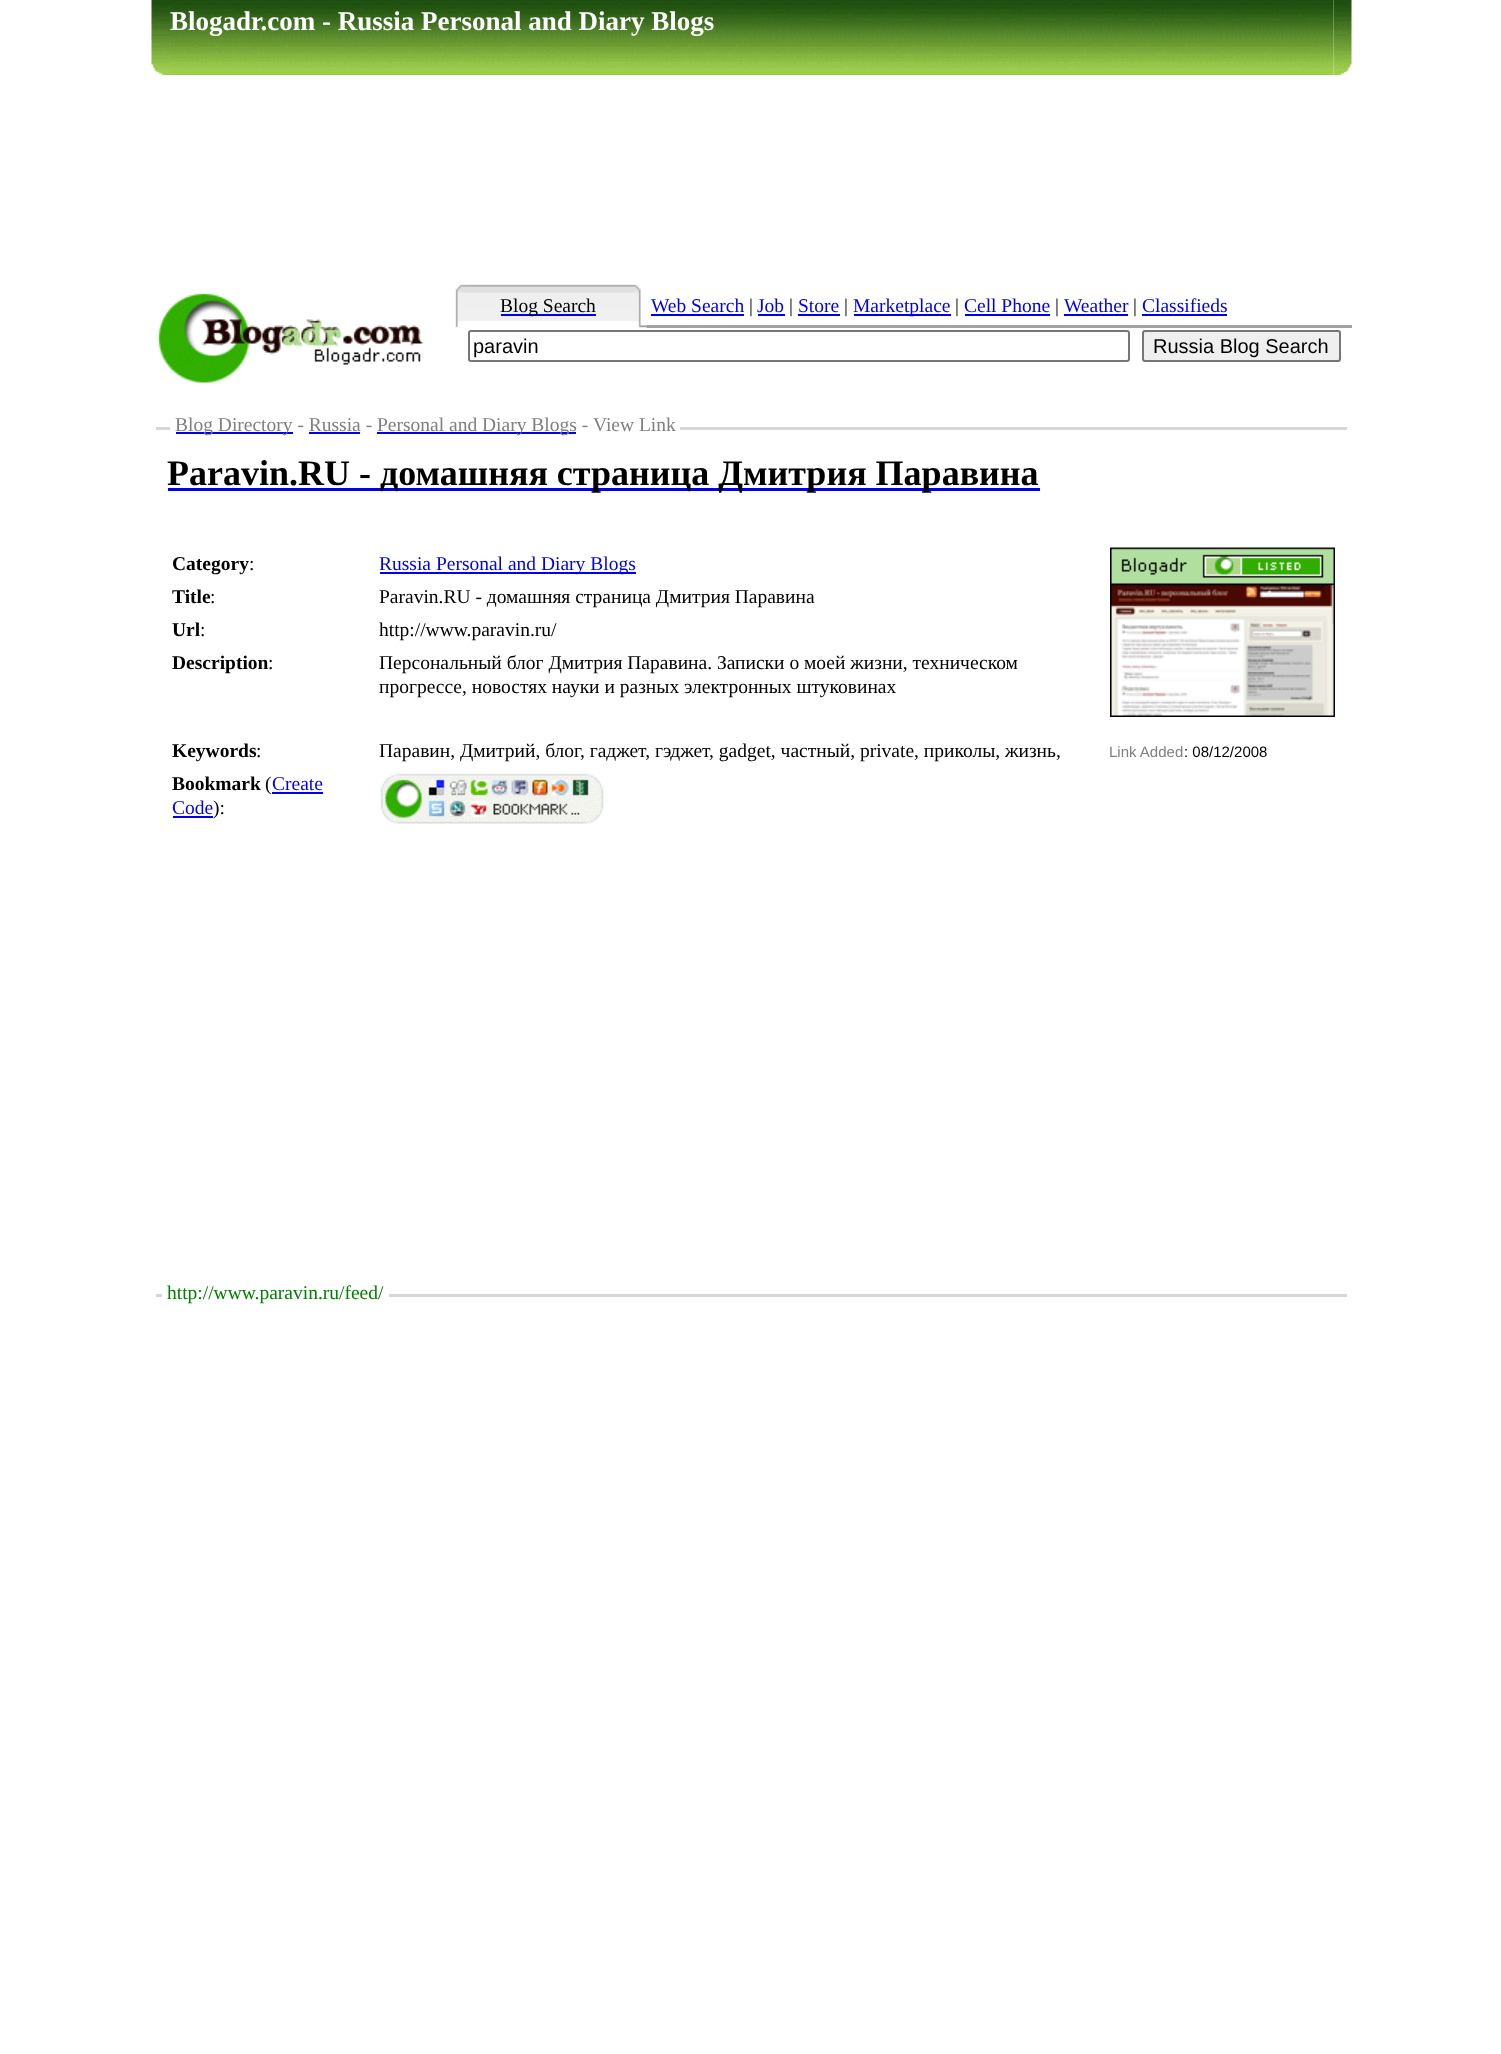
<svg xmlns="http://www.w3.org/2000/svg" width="1501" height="2054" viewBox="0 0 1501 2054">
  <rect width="100%" height="100%" fill="#fff"/>
  <image x="151" y="0" width="20" height="75" href="img/1.png"/>
  <image x="171" y="0" width="1163" height="75" href="img/2.png"/>
  <image x="1333" y="0" width="19" height="75" href="img/3.png"/>
  <image x="158" y="293" width="266" height="90" href="img/4.png"/>
  <image x="455" y="284" width="13" height="44" href="img/5.png"/>
  <image x="468" y="284" width="162" height="37" href="img/6.png"/>
  <path d="M501 314h95v2H501z" fill="#00e"/>
  <path d="M646 325h706v3H646z" fill="#a2a2a2"/>
  <image x="630" y="284" width="17" height="44" href="img/7.png"/>
  <path d="M651 314h93v2H651z" fill="#00e"/>
  <path d="M758 314h27v2H758z" fill="#00e"/>
  <path d="M798 314h42v2H798z" fill="#00e"/>
  <path d="M854 314h97v2H854z" fill="#00e"/>
  <path d="M965 314h85v2H965z" fill="#00e"/>
  <path d="M1064 314h64v2H1064z" fill="#00e"/>
  <path d="M1142 314h85v2H1142z" fill="#00e"/>
  <rect x="469" y="331" width="660" height="30" rx="2" fill="none" stroke="#767676" stroke-width="2"/>
  <rect x="1143" y="331" width="197" height="30" rx="2" fill="#efefef" stroke="#767676" stroke-width="2"/>
  <path d="M156 427h1191v3H156z" fill="#d7d7d7"/>
  <path d="M170 427h6v8H170z" fill="#fff"/>
  <path d="M176 427h504v3H176z" fill="#fff"/>
  <path d="M176 432h117v2H176z" fill="#00e"/>
  <path d="M168 488h872v3H168z" fill="#00e"/>
  <path d="M380 572h256v2H380z" fill="#00e"/>
  <path d="M272 792h51v2H272z" fill="#00e"/>
  <path d="M173 816h40v2H173z" fill="#00e"/>
  <image x="380" y="773" width="224" height="51" href="img/8.png"/>
  <image x="1110" y="547" width="225" height="170" href="img/9.png"/>
  <path d="M156 1294h1191v3H156z" fill="#d7d7d7"/>
  <path d="M162 1294h227v3H162z" fill="#fff"/>
  <text x="170" y="30" font-family="Liberation Serif" font-size="27" font-weight="bold" fill="#fff">Blogadr.com - Russia Personal and Diary Blogs</text>
  <text x="500" y="312" font-family="Liberation Serif" font-size="19.5" fill="#000">Blog Search</text>
  <text x="651" y="312" font-family="Liberation Serif" font-size="19.5" fill="#00e">Web Search</text>
  <text x="749" y="312" font-family="Liberation Serif" font-size="19.5" fill="#000">|</text>
  <text x="757" y="312" font-family="Liberation Serif" font-size="19.5" fill="#00e">Job</text>
  <text x="789" y="312" font-family="Liberation Serif" font-size="19.5" fill="#000">|</text>
  <text x="798" y="312" font-family="Liberation Serif" font-size="19.5" fill="#00e">Store</text>
  <text x="844" y="312" font-family="Liberation Serif" font-size="19.5" fill="#000">|</text>
  <text x="853" y="312" font-family="Liberation Serif" font-size="19.5" fill="#00e">Marketplace</text>
  <text x="955" y="312" font-family="Liberation Serif" font-size="19.5" fill="#000">|</text>
  <text x="964" y="312" font-family="Liberation Serif" font-size="19.5" fill="#00e">Cell Phone</text>
  <text x="1055" y="312" font-family="Liberation Serif" font-size="19.5" fill="#000">|</text>
  <text x="1064" y="312" font-family="Liberation Serif" font-size="19.5" fill="#00e">Weather</text>
  <text x="1133" y="312" font-family="Liberation Serif" font-size="19.5" fill="#000">|</text>
  <text x="1142" y="312" font-family="Liberation Serif" font-size="19.5" fill="#00e">Classifieds</text>
  <g font-family="Liberation Sans" font-size="20" fill="#000">
    <text x="473" y="353">paravin</text>
    <text x="1153" y="353">Russia Blog Search</text>
  </g>
  <text x="175" y="431" font-family="Liberation Serif" font-size="19.5" fill="#808080">Blog Directory - Russia - Personal</text>
  <path d="M309 432h51v2H309z" fill="#00e"/>
  <path d="M377 432h199v2H377z" fill="#00e"/>
  <g font-family="Liberation Serif" font-size="19.5" fill="#808080">
    <text x="449" y="431">and Diary Blogs -</text>
    <text x="593" y="431">View Link</text>
  </g>
  <text x="167" y="485" font-family="Liberation Serif" font-size="36" font-weight="bold" fill="#000">Paravin.RU - домашняя страница Дмитрия Паравина</text>
  <text x="172" y="570" font-family="Liberation Serif" font-size="19.5" font-weight="bold" fill="#000">Category</text>
  <text x="249" y="570" font-family="Liberation Serif" font-size="19.5" fill="#000">:</text>
  <text x="379" y="570" font-family="Liberation Serif" font-size="19.5" fill="#00e">Russia Personal and Diary Blogs</text>
  <text x="172" y="603" font-family="Liberation Serif" font-size="19.5" font-weight="bold" fill="#000">Title</text>
  <g font-family="Liberation Serif" font-size="19.5" fill="#000">
    <text x="210" y="603">:</text>
    <text x="379" y="603">Paravin.RU - домашняя страница Дмитрия Паравина</text>
  </g>
  <text x="172" y="636" font-family="Liberation Serif" font-size="19.5" font-weight="bold" fill="#000">Url</text>
  <g font-family="Liberation Serif" font-size="19.5" fill="#000">
    <text x="200" y="636">:</text>
    <text x="379" y="636">http://www.paravin.ru/</text>
  </g>
  <text x="172" y="669" font-family="Liberation Serif" font-size="19.5" font-weight="bold" fill="#000">Description</text>
  <g font-family="Liberation Serif" font-size="19.5" fill="#000">
    <text x="268" y="669">:</text>
    <text x="379" y="669">Персональный блог Дмитрия Паравина. Записки о моей жизни, техническом</text>
    <text x="379" y="693">прогрессе, новостях науки и разных электронных штуковинах</text>
  </g>
  <text x="172" y="757" font-family="Liberation Serif" font-size="19.5" font-weight="bold" fill="#000">Keywords</text>
  <g font-family="Liberation Serif" font-size="19.5" fill="#000">
    <text x="256" y="757">:</text>
    <text x="379" y="757">Паравин, Дмитрий, блог, гаджет, гэджет, gadget, частный, private, приколы, жизнь,</text>
  </g>
  <text x="172" y="790" font-family="Liberation Serif" font-size="19.5" font-weight="bold" fill="#000">Bookmark</text>
  <text x="265" y="790" font-family="Liberation Serif" font-size="19.5" fill="#000">(</text>
  <g font-family="Liberation Serif" font-size="19.5" fill="#00e">
    <text x="272" y="790">Create</text>
    <text x="172" y="814">Code</text>
  </g>
  <text x="213" y="814" font-family="Liberation Serif" font-size="19.5" fill="#000">):</text>
  <text x="1109" y="757" font-family="Liberation Sans" font-size="15" fill="#808080">Link Added</text>
  <text x="1184" y="757" font-family="Liberation Sans" font-size="15" fill="#000">: 08/12/2008</text>
  <text x="167" y="1299" font-family="Liberation Serif" font-size="19.5" fill="#008000">http://www.paravin.ru/feed/</text>
</svg>
